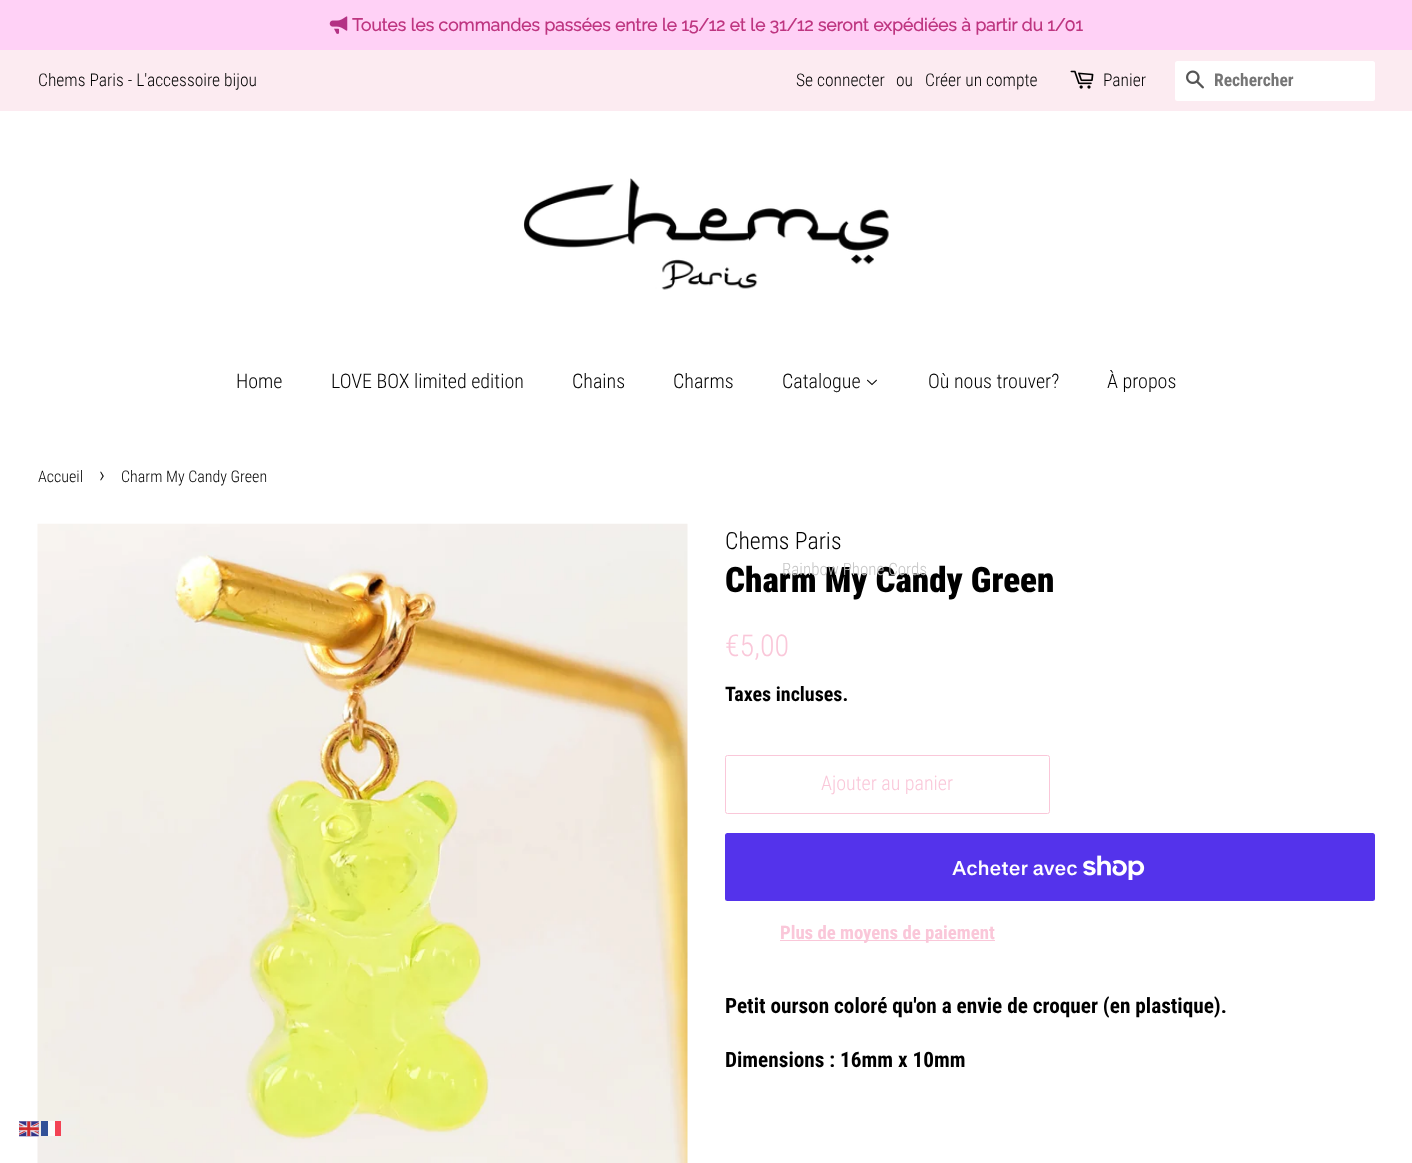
<svg xmlns="http://www.w3.org/2000/svg" width="1412" height="1163" viewBox="0 0 1412 1163">
  <rect width="100%" height="100%" fill="#fff"/>
  <path d="M0 0h1412v50H0z" fill="#ffd1f6"/>
  <image x="329" y="16" width="19" height="18" href="img/1.png"/>
  <path d="M0 50h1412v61H0z" fill="#fcebf1"/>
  <image x="1070" y="70" width="24" height="19" href="img/2.png"/>
  <rect x="1175" y="61" width="200" height="40" rx="2.5" fill="#fff"/>
  <image x="1186" y="70" width="18" height="19" href="img/3.png"/>
  <image x="523" y="178" width="366" height="112" href="img/4.png"/>
  <image x="867" y="379" width="10" height="7" href="img/5.png"/>
  <image x="37" y="523" width="651" height="640" href="img/6.png"/>
  <rect x="725.5" y="755.5" width="324" height="58" rx="2" fill="none" stroke="#fac7d9"/>
  <rect x="725" y="833" width="650" height="68" rx="2.5" fill="#5433eb"/>
  <image x="1083" y="855" width="62" height="25" href="img/7.png"/>
  <path d="M780 940h215v1H780z" fill="#fac7d9"/>
  <image x="19" y="1121" width="20" height="16" href="img/8.png"/>
  <path d="M41 1121h7v15H41z" fill="#325198"/>
  <path d="M48 1121h7v15H48z" fill="#ffffffcc"/>
  <path d="M55 1121h6v15H55z" fill="#f34355"/>
  <text x="352" y="31" font-family="Raleway" font-size="17.5" font-weight="bold" fill="#be3580">Toutes les commandes passées entre le 15/12 et le 31/12 seront expédiées à partir du 1/01</text>
  <g font-family="Roboto Condensed" font-size="17.5" font-weight="300" fill="#000">
    <text x="38" y="86">Chems Paris - L'accessoire bijou</text>
    <text x="796" y="86">Se connecter</text>
    <text x="896" y="86">ou</text>
    <text x="925" y="86">Créer un compte</text>
    <text x="1103" y="86">Panier</text>
  </g>
  <text x="1214" y="86" font-family="Roboto Condensed" font-size="17.5" font-weight="bold" fill="#757575">Rechercher</text>
  <g font-family="Roboto Condensed" font-size="20" font-weight="300" fill="#000">
    <text x="236" y="388">Home</text>
    <text x="331" y="388">LOVE BOX limited edition</text>
    <text x="572" y="388">Chains</text>
    <text x="673" y="388">Charms</text>
    <text x="782" y="388">Catalogue</text>
    <text x="928" y="388">Où nous trouver?</text>
    <text x="1107" y="388">À propos</text>
  </g>
  <text x="38" y="482" font-family="Roboto Condensed" font-size="16" font-weight="300" fill="#000">Accueil</text>
  <text x="99" y="482" font-family="Roboto Condensed" font-size="22" font-weight="300" fill="#000">›</text>
  <text x="121" y="482" font-family="Roboto Condensed" font-size="16" font-weight="300" fill="#000">Charm My Candy Green</text>
  <text x="725" y="549" font-family="Roboto Condensed" font-size="23.75" font-weight="300" fill="#000">Chems Paris</text>
  <text x="725" y="592" font-family="Roboto Condensed" font-size="35" font-weight="900" fill="#000">Charm My Candy Green</text>
  <text x="782" y="575" font-family="Roboto Condensed" font-size="17" font-weight="300" fill="#c6c6c6">Rainbow Phone Cords</text>
  <text x="725" y="656" font-family="Roboto Condensed" font-size="30" font-weight="300" fill="#fac7d9">€5,00</text>
  <text x="725" y="701" font-family="Roboto Condensed" font-size="20" font-weight="bold" fill="#000">Taxes incluses.</text>
  <text x="821" y="790" font-family="Roboto Condensed" font-size="20" font-weight="300" fill="#fac7d9">Ajouter au panier</text>
  <text x="952" y="875" font-family="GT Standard" font-size="20" font-weight="600" fill="#fff">Acheter avec</text>
  <text x="780" y="939" font-family="Roboto Condensed" font-size="18.75" font-weight="bold" fill="#fac7d9">Plus de moyens de paiement</text>
  <g font-family="Roboto Condensed" font-size="21.25" font-weight="bold" fill="#000">
    <text x="725" y="1013">Petit ourson coloré qu'on a envie de croquer (en plastique).</text>
    <text x="725" y="1067">Dimensions : 16mm x 10mm</text>
  </g>
</svg>
